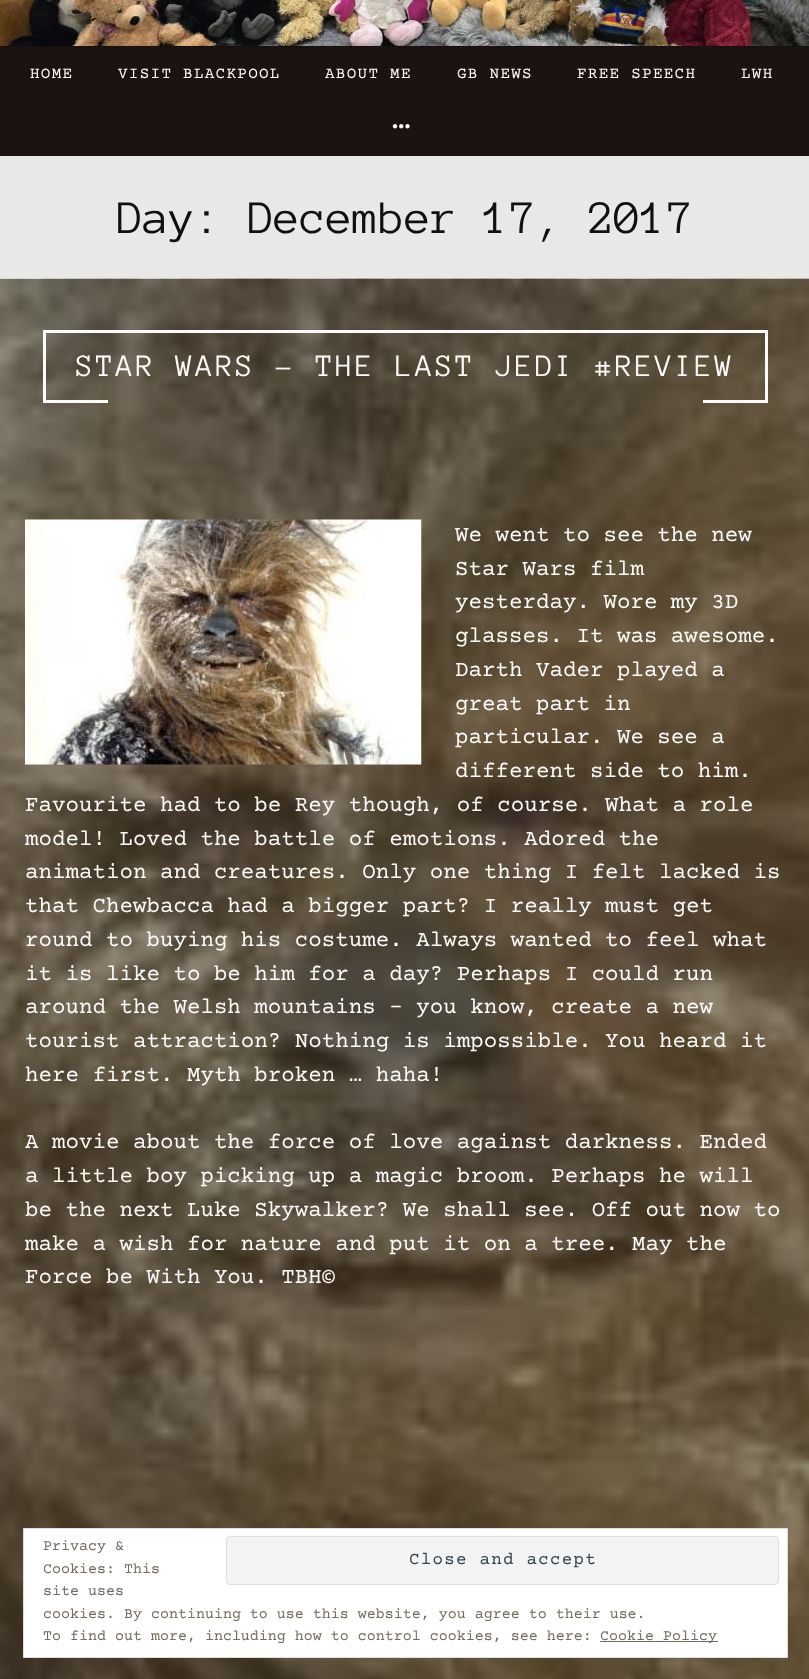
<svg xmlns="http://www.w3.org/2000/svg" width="809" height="1679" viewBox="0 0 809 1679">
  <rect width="100%" height="100%" fill="#e8e8e6"/>
  <image x="0" y="0" width="809" height="46" href="img/1.png"/>
  <path d="M0 47h809v108H0z" fill="#1b1311"/>
  <path d="M0 46h809v1H0z" fill="#140e0c"/>
  <path d="M0 155h809v1H0z" fill="#140e0c"/>
  <image x="392" y="124" width="18" height="5" href="img/2.png"/>
  <path d="M0 279h809v1400H0z" fill="#5c5038"/>
  <image x="0" y="278" width="809" height="1401" href="img/3.png"/>
  <path d="M43 330h725v3H43z" fill="#fcfbf9"/>
  <path d="M765 330h3v73H765z" fill="#fcfbf9"/>
  <path d="M43 330h3v73H43z" fill="#fcfbf9"/>
  <path d="M45 400h63v3H45z" fill="#fcfbf9"/>
  <path d="M703 400h62v3H703z" fill="#fcfbf9"/>
  <image x="25" y="519" width="397" height="246" href="img/4.png"/>
  <path d="M23.5 1528.5h764v129H23.5z" fill="#fff" stroke="#dedede"/>
  <rect x="226.5" y="1536.5" width="552" height="48" rx="3.5" fill="#f3f3f3" stroke="#dedede"/>
  <path d="M600 1641h118v1H600z" fill="#726b60"/>
  <g font-family="Courier Prime" font-size="16" letter-spacing="1.25" fill="#fcfbf9">
    <text x="30" y="78">HOME</text>
    <text x="118" y="78">VISIT BLACKPOOL</text>
    <text x="325" y="78">ABOUT ME</text>
    <text x="457" y="78">GB NEWS</text>
    <text x="577" y="78">FREE SPEECH</text>
    <text x="741" y="78">LWH</text>
  </g>
  <text x="117" y="233" font-family="Anonymous Pro" font-size="48" fill="#0f1110">Day: December 17, 2017</text>
  <text x="76" y="376" font-family="Anonymous Pro" font-size="32" letter-spacing="2.5" fill="#fcfbf9">STAR WARS – THE LAST JEDI #REVIEW</text>
  <g font-family="Courier Prime" font-size="22.5" fill="#fcfbf9">
    <text x="455" y="541">We went to see the new</text>
    <text x="455" y="575">Star Wars film</text>
    <text x="455" y="608">yesterday. Wore my 3D</text>
    <text x="455" y="642">glasses. It was awesome.</text>
    <text x="455" y="676">Darth Vader played a</text>
    <text x="455" y="710">great part in</text>
    <text x="455" y="743">particular. We see a</text>
    <text x="455" y="777">different side to him.</text>
    <text x="25" y="811">Favourite had to be Rey though, of course. What a role</text>
    <text x="25" y="845">model! Loved the battle of emotions. Adored the</text>
    <text x="25" y="878">animation and creatures. Only one thing I felt lacked is</text>
    <text x="25" y="912">that Chewbacca had a bigger part? I really must get</text>
    <text x="25" y="946">round to buying his costume. Always wanted to feel what</text>
    <text x="25" y="980">it is like to be him for a day? Perhaps I could run</text>
    <text x="25" y="1013">around the Welsh mountains – you know, create a new</text>
    <text x="25" y="1047">tourist attraction? Nothing is impossible. You heard it</text>
    <text x="25" y="1081">here first. Myth broken … haha!</text>
    <text x="25" y="1148">A movie about the force of love against darkness. Ended</text>
    <text x="25" y="1182">a little boy picking up a magic broom. Perhaps he will</text>
    <text x="25" y="1216">be the next Luke Skywalker? We shall see. Off out now to</text>
    <text x="25" y="1250">make a wish for nature and put it on a tree. May the</text>
    <text x="25" y="1283">Force be With You. TBH©</text>
  </g>
  <g font-family="Courier Prime" font-size="15" fill="#726b60">
    <text x="43" y="1550">Privacy &amp;</text>
    <text x="43" y="1573">Cookies: This</text>
  </g>
  <text x="409" y="1564" font-family="Courier Prime" font-size="17.5" letter-spacing="1.25" fill="#2e4453">Close and accept</text>
  <g font-family="Courier Prime" font-size="15" fill="#726b60">
    <text x="43" y="1595">site uses</text>
    <text x="43" y="1618">cookies. By continuing to use this website, you agree to their use.</text>
    <text x="43" y="1640">To find out more, including how to control cookies, see here:</text>
    <text x="600" y="1640">Cookie Policy</text>
  </g>
</svg>
